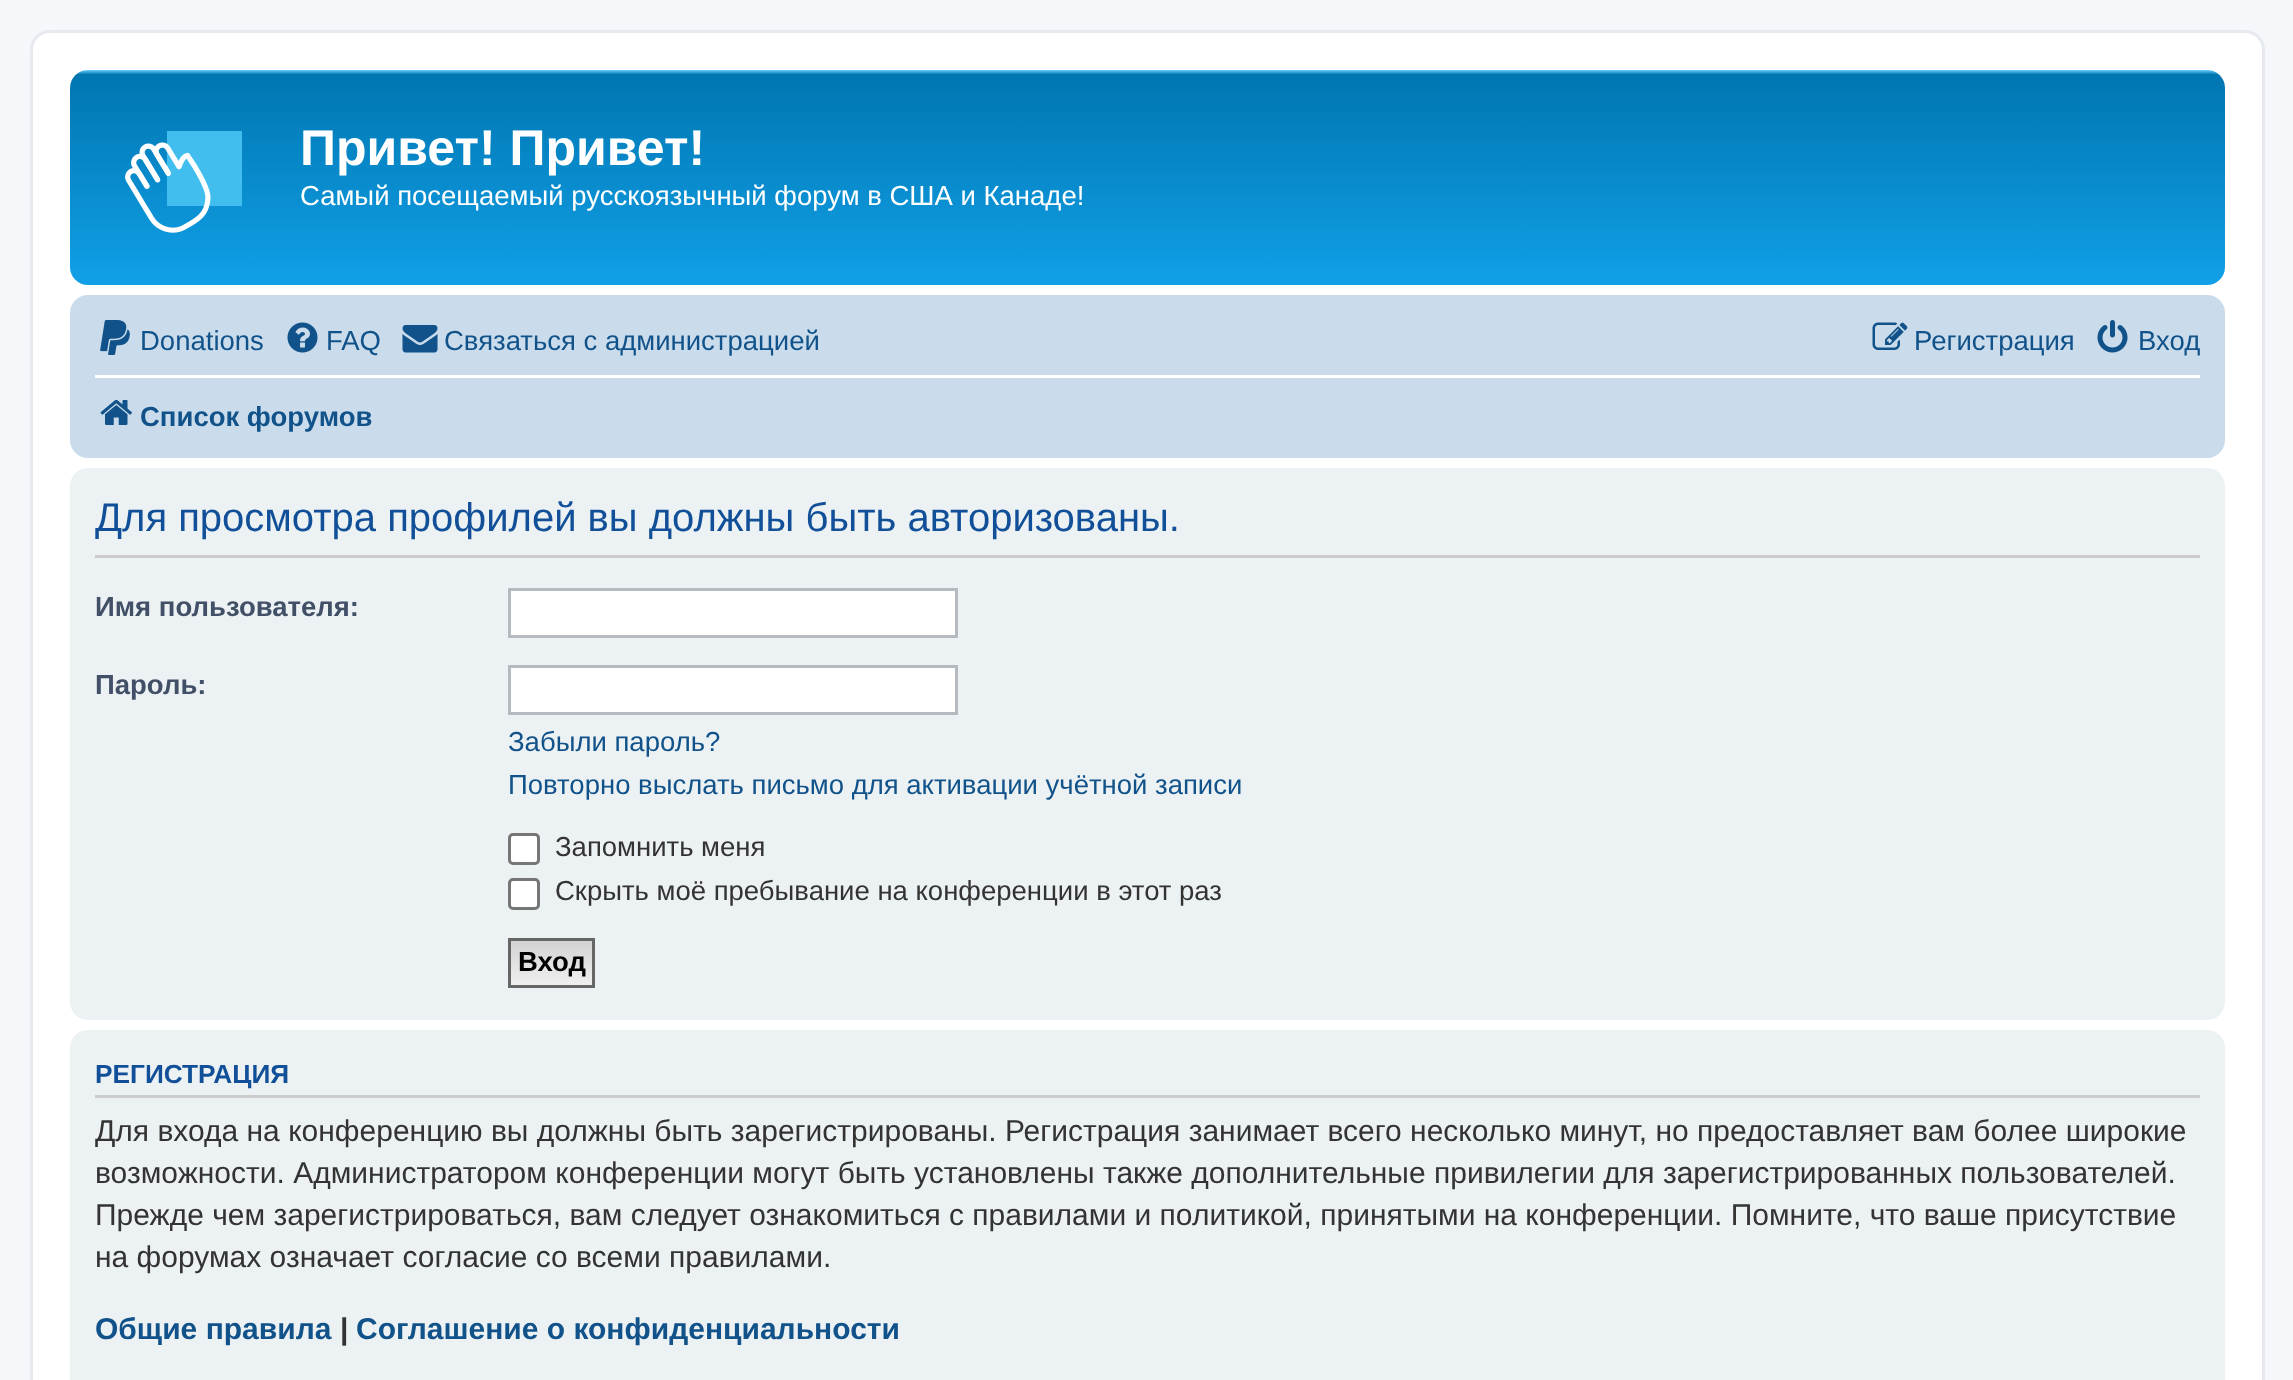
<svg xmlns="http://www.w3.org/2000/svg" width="2293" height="1380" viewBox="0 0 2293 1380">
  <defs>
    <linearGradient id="g1" gradientUnits="userSpaceOnUse" x1="1148" y1="70" x2="1148" y2="300"><stop offset="0" stop-color="#6aceff"/><stop offset="0.02" stop-color="#0076b1"/><stop offset="1" stop-color="#12a3eb"/></linearGradient>
    <linearGradient id="g2" gradientUnits="userSpaceOnUse" x1="551" y1="940" x2="551" y2="985"><stop offset="0" stop-color="#d2d2d2"/><stop offset="1" stop-color="#efefef"/></linearGradient>
  </defs>
  <rect width="100%" height="100%" fill="#f5f7fa"/>
  <rect x="31.5" y="31.5" width="2232" height="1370" rx="18.5" fill="#fff" stroke="#e6e9ed" stroke-width="3"/>
  <rect x="70" y="70" width="2155" height="215" rx="18" fill="url(#g1)"/>
  <image x="125" y="131" width="117" height="102" href="img/1.png"/>
  <rect x="70" y="295" width="2155" height="163" rx="18" fill="#cadceb"/>
  <image x="100" y="320" width="30" height="35" href="img/2.png"/>
  <image x="287" y="322" width="31" height="31" href="img/3.png"/>
  <image x="402" y="325" width="36" height="28" href="img/4.png"/>
  <image x="1872" y="322" width="36" height="28" href="img/5.png"/>
  <image x="2097" y="320" width="31" height="33" href="img/6.png"/>
  <path d="M95 375h2105v3H95z" fill="#fff"/>
  <image x="100" y="399" width="32" height="26" href="img/7.png"/>
  <rect x="70" y="468" width="2155" height="552" rx="18" fill="#ecf1f3"/>
  <path d="M95 555h2105v3H95z" fill="#ccc"/>
  <path d="M509.5 589.5h447v47H509.5z" fill="#fff" stroke="#b4bac0" stroke-width="3"/>
  <path d="M509.5 666.5h447v47H509.5z" fill="#fff" stroke="#b4bac0" stroke-width="3"/>
  <rect x="509.5" y="834.5" width="29" height="29" rx="3.5" fill="#fff" stroke="#767676" stroke-width="3"/>
  <rect x="509.5" y="879.5" width="29" height="29" rx="3.5" fill="#fff" stroke="#767676" stroke-width="3"/>
  <path d="M511 941h81v44H511z" fill="url(#g2)"/>
  <path d="M509.5 939.5h84v47H509.5z" fill="none" stroke="#666" stroke-width="3"/>
  <rect x="70" y="1030" width="2155" height="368" rx="18" fill="#ecf1f3"/>
  <path d="M95 1095h2105v3H95z" fill="#ccc"/>
  <text x="300" y="165" font-family="Liberation Sans" font-size="50" font-weight="bold" fill="#fff">Привет! Привет!</text>
  <text x="300" y="205" font-family="Liberation Sans" font-size="27.5" fill="#fff">Самый посещаемый русскоязычный форум в США и Канаде!</text>
  <g font-family="Liberation Sans" font-size="27.5" fill="#105289">
    <text x="140" y="350">Donations</text>
    <text x="326" y="350">FAQ</text>
    <text x="444" y="350">Связаться с администрацией</text>
    <text x="1914" y="350">Регистрация</text>
    <text x="2138" y="350">Вход</text>
  </g>
  <text x="140" y="426" font-family="Liberation Sans" font-size="27.5" font-weight="bold" fill="#105289">Список форумов</text>
  <text x="95" y="531" font-family="Liberation Sans" font-size="40" fill="#115098">Для просмотра профилей вы должны быть авторизованы.</text>
  <g font-family="Liberation Sans" font-size="27.5" font-weight="bold" fill="#425067">
    <text x="95" y="616">Имя пользователя:</text>
    <text x="95" y="694">Пароль:</text>
  </g>
  <g font-family="Liberation Sans" font-size="27.5" fill="#105289">
    <text x="508" y="751">Забыли пароль?</text>
    <text x="508" y="794">Повторно выслать письмо для активации учётной записи</text>
  </g>
  <g font-family="Liberation Sans" font-size="27.5" fill="#333">
    <text x="555" y="856">Запомнить меня</text>
    <text x="555" y="900">Скрыть моё пребывание на конференции в этот раз</text>
  </g>
  <text x="518" y="971" font-family="Liberation Sans" font-size="27.5" font-weight="bold" fill="#000">Вход</text>
  <text x="95" y="1083" font-family="Liberation Sans" font-size="26.25" font-weight="bold" fill="#115098">РЕГИСТРАЦИЯ</text>
  <g font-family="Liberation Sans" font-size="30" fill="#333">
    <text x="95" y="1141">Для входа на конференцию вы должны быть зарегистрированы. Регистрация занимает всего несколько минут, но предоставляет вам более широкие</text>
    <text x="95" y="1183">возможности. Администратором конференции могут быть установлены также дополнительные привилегии для зарегистрированных пользователей.</text>
    <text x="95" y="1225">Прежде чем зарегистрироваться, вам следует ознакомиться с правилами и политикой, принятыми на конференции. Помните, что ваше присутствие</text>
    <text x="95" y="1267">на форумах означает согласие со всеми правилами.</text>
  </g>
  <text x="95" y="1339" font-family="Liberation Sans" font-size="30" font-weight="bold" fill="#105289">Общие правила</text>
  <text x="340" y="1339" font-family="Liberation Sans" font-size="30" font-weight="bold" fill="#333">|</text>
  <text x="356" y="1339" font-family="Liberation Sans" font-size="30" font-weight="bold" fill="#105289">Соглашение о конфиденциальности</text>
</svg>
